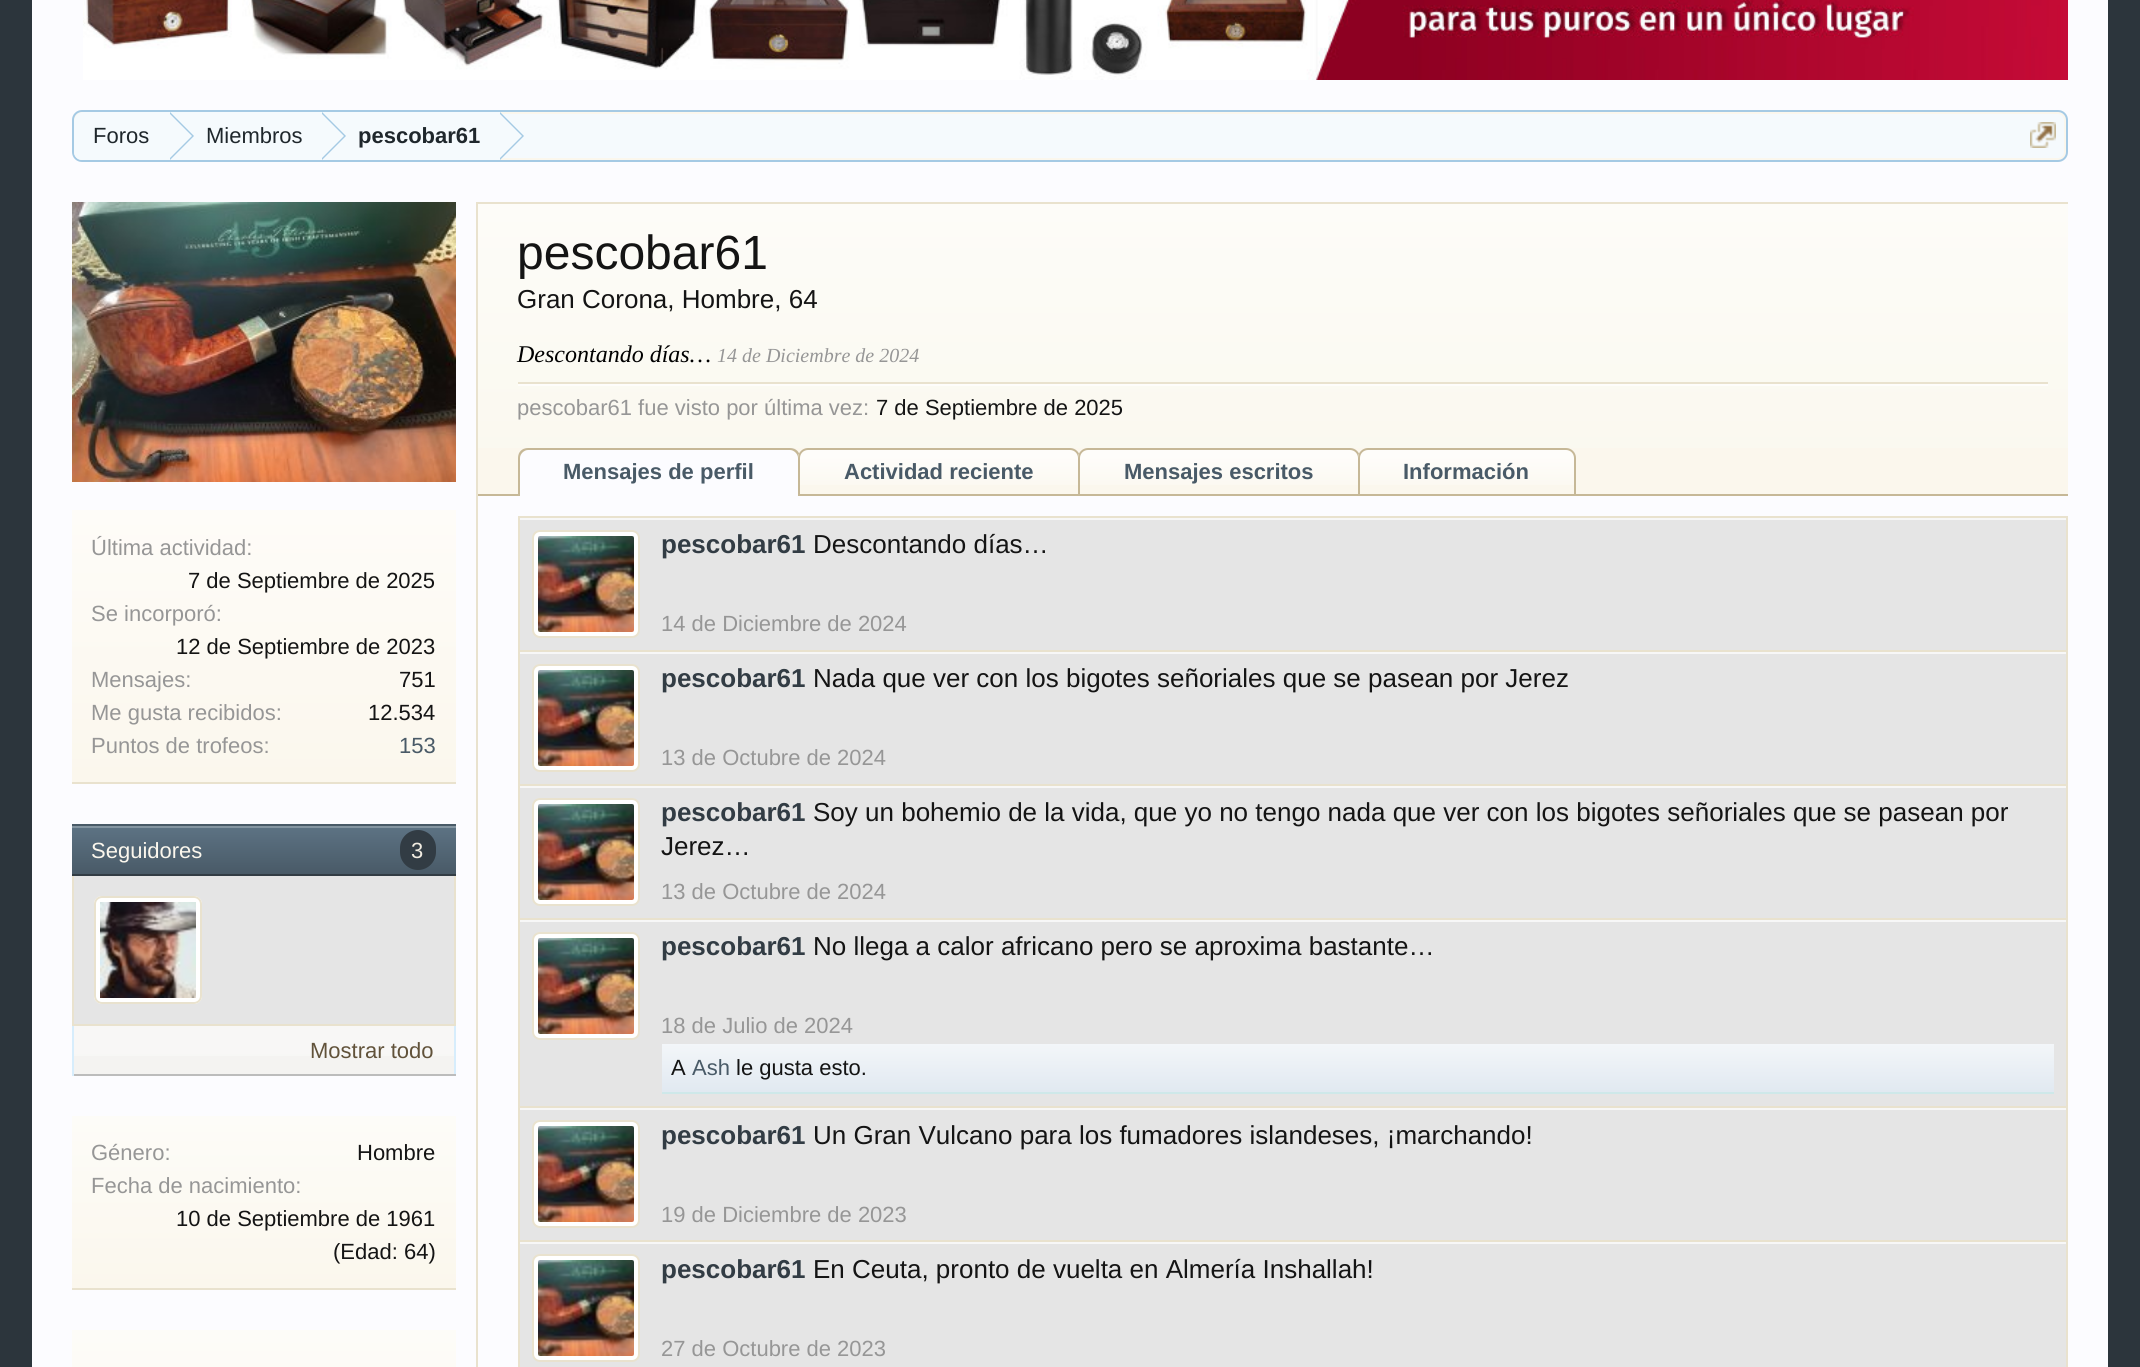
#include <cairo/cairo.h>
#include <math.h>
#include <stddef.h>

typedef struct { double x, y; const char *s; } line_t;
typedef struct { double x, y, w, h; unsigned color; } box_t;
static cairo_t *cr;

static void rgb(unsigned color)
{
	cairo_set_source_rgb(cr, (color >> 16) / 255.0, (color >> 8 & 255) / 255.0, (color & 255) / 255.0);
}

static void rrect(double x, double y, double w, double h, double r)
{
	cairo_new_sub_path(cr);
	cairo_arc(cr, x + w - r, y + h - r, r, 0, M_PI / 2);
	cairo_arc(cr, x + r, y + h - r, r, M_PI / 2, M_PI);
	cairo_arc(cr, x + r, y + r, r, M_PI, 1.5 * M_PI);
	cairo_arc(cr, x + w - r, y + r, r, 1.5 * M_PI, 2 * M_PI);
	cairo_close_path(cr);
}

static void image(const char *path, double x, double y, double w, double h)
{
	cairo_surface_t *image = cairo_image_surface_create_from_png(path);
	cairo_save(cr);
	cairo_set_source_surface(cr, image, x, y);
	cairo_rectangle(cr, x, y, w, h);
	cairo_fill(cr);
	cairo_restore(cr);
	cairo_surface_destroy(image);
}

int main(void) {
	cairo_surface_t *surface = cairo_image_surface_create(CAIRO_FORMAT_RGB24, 2140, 1367);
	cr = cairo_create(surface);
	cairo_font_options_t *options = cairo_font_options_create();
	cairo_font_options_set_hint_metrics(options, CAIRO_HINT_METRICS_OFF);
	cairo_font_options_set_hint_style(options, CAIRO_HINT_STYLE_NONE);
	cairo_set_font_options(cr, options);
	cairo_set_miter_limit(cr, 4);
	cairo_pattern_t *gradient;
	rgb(0x2c353c);
	cairo_paint(cr);
	rgb(0xfcfcff);
	cairo_rectangle(cr, 32, 0, 2076, 1367);
	cairo_fill(cr);
	image("img/1.png", 83, 0, 1985, 80);
	rgb(0xf5fafd);
	rrect(72, 110, 1996, 52, 10);
	cairo_fill(cr);
	rrect(75, 113, 1990, 46, 7);
	rgb(0xfbf7ed);
	cairo_stroke(cr);
	rrect(73, 111, 1994, 50, 9);
	rgb(0xa5cae4);
	cairo_stroke(cr);
	cairo_save(cr);
	rrect(74, 112, 1992, 48, 8);
	cairo_clip(cr);
	rgb(0xf5fafd);
	cairo_new_path(cr);
	cairo_move_to(cr, 84, 112);
	cairo_line_to(cr, 170, 112);
	cairo_line_to(cr, 170, 162);
	cairo_line_to(cr, 84, 162);
	cairo_curve_to(cr, 78.5, 162, 74, 157.5, 74, 152);
	cairo_line_to(cr, 74, 122);
	cairo_curve_to(cr, 74, 116.5, 78.5, 112, 84, 112);
	cairo_close_path(cr);
	cairo_fill(cr);
	cairo_restore(cr);
	rgb(0xf5fafd);
	cairo_rectangle(cr, 170, 112, 330, 48);
	cairo_fill(cr);
	rgb(0xa5cae4);
	cairo_new_path(cr);
	cairo_move_to(cr, 170, 160);
	cairo_line_to(cr, 170, 112);
	cairo_line_to(cr, 194, 136);
	cairo_close_path(cr);
	cairo_fill(cr);
	rgb(0xf5fafd);
	cairo_new_path(cr);
	cairo_move_to(cr, 168, 160);
	cairo_line_to(cr, 168, 112);
	cairo_line_to(cr, 192, 136);
	cairo_close_path(cr);
	cairo_fill(cr);
	rgb(0xa5cae4);
	cairo_new_path(cr);
	cairo_move_to(cr, 322, 160);
	cairo_line_to(cr, 322, 112);
	cairo_line_to(cr, 346, 136);
	cairo_close_path(cr);
	cairo_fill(cr);
	rgb(0xf5fafd);
	cairo_new_path(cr);
	cairo_move_to(cr, 320, 160);
	cairo_line_to(cr, 320, 112);
	cairo_line_to(cr, 344, 136);
	cairo_close_path(cr);
	cairo_fill(cr);
	rgb(0xa5cae4);
	cairo_new_path(cr);
	cairo_move_to(cr, 500, 160);
	cairo_line_to(cr, 500, 112);
	cairo_line_to(cr, 524, 136);
	cairo_close_path(cr);
	cairo_fill(cr);
	rgb(0xf5fafd);
	cairo_new_path(cr);
	cairo_move_to(cr, 498, 160);
	cairo_line_to(cr, 498, 112);
	cairo_line_to(cr, 522, 136);
	cairo_close_path(cr);
	cairo_fill(cr);
	image("img/2.png", 2030, 122, 26, 26);
	rgb(0xe9e2ce);
	cairo_rectangle(cr, 476, 202, 2, 1165);
	cairo_fill(cr);
	image("img/3.png", 72, 202, 384, 280);
	gradient = cairo_pattern_create_linear(264, 510, 264, 782);
	cairo_pattern_add_color_stop_rgba(gradient, 0, 0.996, 0.988, 0.973, 1);
	cairo_pattern_add_color_stop_rgba(gradient, 1, 0.984, 0.969, 0.929, 1);
	cairo_set_source(cr, gradient);
	cairo_pattern_destroy(gradient);
	cairo_rectangle(cr, 72, 510, 384, 272);
	cairo_fill(cr);
	rgb(0xe9e2ce);
	cairo_rectangle(cr, 72, 782, 384, 2);
	cairo_fill(cr);
	rgb(0x495a67);
	cairo_rectangle(cr, 72, 824, 384, 2);
	cairo_fill(cr);
	gradient = cairo_pattern_create_linear(264, 826, 264, 874);
	cairo_pattern_add_color_stop_rgba(gradient, 0, 0.365, 0.451, 0.518, 1);
	cairo_pattern_add_color_stop_rgba(gradient, 1, 0.286, 0.353, 0.404, 1);
	cairo_set_source(cr, gradient);
	cairo_pattern_destroy(gradient);
	cairo_rectangle(cr, 72, 828, 384, 46);
	cairo_fill(cr);
	rgb(0x8596a2);
	cairo_rectangle(cr, 72, 826, 384, 2);
	cairo_fill(cr);
	rgb(0x323c44);
	cairo_rectangle(cr, 72, 874, 384, 2);
	cairo_fill(cr);
	rrect(400, 830, 36, 40, 18);
	cairo_fill(cr);
	{
		static const box_t items[] = {
			{74, 876, 380, 148, 0xe5e5e5},
			{454, 876, 2, 150, 0xe9e2ce},
			{72, 1024, 384, 2, 0xe9e2ce},
			{72, 876, 2, 150, 0xe9e2ce},
		};
		for (size_t i = 0; i < sizeof items / sizeof *items; i++) {
			rgb(items[i].color);
			cairo_rectangle(cr, items[i].x, items[i].y, items[i].w, items[i].h);
			cairo_fill(cr);
		}
	}
	rgb(0xffffff);
	rrect(94, 896, 108, 108, 8);
	cairo_fill(cr);
	image("img/4.png", 100, 902, 96, 96);
	rrect(95, 897, 106, 106, 7);
	rgb(0xe9e2ce);
	cairo_stroke(cr);
	rgb(0xf4f3f1);
	cairo_rectangle(cr, 74, 1026, 380, 48);
	cairo_fill(cr);
	image("img/5.png", 74, 1026, 380, 30);
	{
		static const box_t items[] = {
			{454, 1026, 2, 50, 0xd7edfc},
			{72, 1074, 384, 2, 0xbcbcbc},
			{72, 1026, 2, 50, 0xd7edfc},
		};
		for (size_t i = 0; i < sizeof items / sizeof *items; i++) {
			rgb(items[i].color);
			cairo_rectangle(cr, items[i].x, items[i].y, items[i].w, items[i].h);
			cairo_fill(cr);
		}
	}
	gradient = cairo_pattern_create_linear(264, 1116, 264, 1288);
	cairo_pattern_add_color_stop_rgba(gradient, 0, 0.992, 0.988, 0.973, 1);
	cairo_pattern_add_color_stop_rgba(gradient, 1, 0.984, 0.969, 0.929, 1);
	cairo_set_source(cr, gradient);
	cairo_pattern_destroy(gradient);
	cairo_rectangle(cr, 72, 1116, 384, 172);
	cairo_fill(cr);
	rgb(0xe9e2ce);
	cairo_rectangle(cr, 72, 1288, 384, 2);
	cairo_fill(cr);
	gradient = cairo_pattern_create_linear(264, 1330, 264, 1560);
	cairo_pattern_add_color_stop_rgba(gradient, 0, 0.992, 0.988, 0.973, 1);
	cairo_pattern_add_color_stop_rgba(gradient, 1, 0.984, 0.969, 0.929, 1);
	cairo_set_source(cr, gradient);
	cairo_pattern_destroy(gradient);
	cairo_rectangle(cr, 72, 1330, 384, 37);
	cairo_fill(cr);
	rgb(0xe9e2ce);
	cairo_rectangle(cr, 478, 202, 1590, 2);
	cairo_fill(cr);
	gradient = cairo_pattern_create_linear(1273, 204, 1273, 494);
	cairo_pattern_add_color_stop_rgba(gradient, 0, 0.992, 0.988, 0.973, 1);
	cairo_pattern_add_color_stop_rgba(gradient, 1, 0.98, 0.973, 0.933, 1);
	cairo_set_source(cr, gradient);
	cairo_pattern_destroy(gradient);
	cairo_rectangle(cr, 478, 204, 1590, 244);
	cairo_fill(cr);
	{
		static const box_t items[] = {
			{518, 384, 1530, 2, 0xfefdfb},
			{518, 382, 1530, 2, 0xe9e2ce},
			{478, 448, 1590, 46, 0xfbf7ed},
			{478, 494, 1590, 2, 0xc6b897},
		};
		for (size_t i = 0; i < sizeof items / sizeof *items; i++) {
			rgb(items[i].color);
			cairo_rectangle(cr, items[i].x, items[i].y, items[i].w, items[i].h);
			cairo_fill(cr);
		}
	}
	rgb(0xfcfcff);
	cairo_new_path(cr);
	cairo_move_to(cr, 528, 448);
	cairo_line_to(cr, 790, 448);
	cairo_curve_to(cr, 795.5, 448, 800, 452.5, 800, 458);
	cairo_line_to(cr, 800, 496);
	cairo_line_to(cr, 518, 496);
	cairo_line_to(cr, 518, 458);
	cairo_curve_to(cr, 518, 452.5, 522.5, 448, 528, 448);
	cairo_close_path(cr);
	cairo_fill(cr);
	rgb(0xc6b897);
	cairo_set_fill_rule(cr, CAIRO_FILL_RULE_EVEN_ODD);
	cairo_new_path(cr);
	cairo_move_to(cr, 528, 448);
	cairo_line_to(cr, 790, 448);
	cairo_curve_to(cr, 796, 448, 800, 452, 800, 458);
	cairo_line_to(cr, 800, 496);
	cairo_line_to(cr, 518, 496);
	cairo_line_to(cr, 518, 458);
	cairo_curve_to(cr, 518, 452, 522, 448, 528, 448);
	cairo_close_path(cr);
	cairo_move_to(cr, 528, 450);
	cairo_line_to(cr, 790, 450);
	cairo_curve_to(cr, 794, 450, 798, 454, 798, 458);
	cairo_line_to(cr, 798, 496);
	cairo_line_to(cr, 520, 496);
	cairo_line_to(cr, 520, 458);
	cairo_curve_to(cr, 520, 454, 524, 450, 528, 450);
	cairo_close_path(cr);
	cairo_fill(cr);
	rgb(0xfbf7ed);
	cairo_new_path(cr);
	cairo_move_to(cr, 808, 448);
	cairo_line_to(cr, 1070, 448);
	cairo_curve_to(cr, 1075.5, 448, 1080, 452.5, 1080, 458);
	cairo_line_to(cr, 1080, 496);
	cairo_line_to(cr, 798, 496);
	cairo_line_to(cr, 798, 458);
	cairo_curve_to(cr, 798, 452.5, 802.5, 448, 808, 448);
	cairo_close_path(cr);
	cairo_fill(cr);
	image("img/6.png", 798, 450, 281, 35);
	cairo_new_path(cr);
	cairo_move_to(cr, 808, 449);
	cairo_line_to(cr, 1070, 449);
	cairo_curve_to(cr, 1075, 449, 1079, 453, 1079, 458);
	cairo_line_to(cr, 1079, 495);
	cairo_line_to(cr, 799, 495);
	cairo_line_to(cr, 799, 458);
	cairo_curve_to(cr, 799, 453, 803, 449, 808, 449);
	cairo_close_path(cr);
	rgb(0xc6b897);
	cairo_stroke(cr);
	rgb(0xfbf7ed);
	cairo_new_path(cr);
	cairo_move_to(cr, 1088, 448);
	cairo_line_to(cr, 1350, 448);
	cairo_curve_to(cr, 1355.5, 448, 1360, 452.5, 1360, 458);
	cairo_line_to(cr, 1360, 496);
	cairo_line_to(cr, 1078, 496);
	cairo_line_to(cr, 1078, 458);
	cairo_curve_to(cr, 1078, 452.5, 1082.5, 448, 1088, 448);
	cairo_close_path(cr);
	cairo_fill(cr);
	image("img/7.png", 1078, 450, 281, 35);
	cairo_new_path(cr);
	cairo_move_to(cr, 1088, 449);
	cairo_line_to(cr, 1350, 449);
	cairo_curve_to(cr, 1355, 449, 1359, 453, 1359, 458);
	cairo_line_to(cr, 1359, 495);
	cairo_line_to(cr, 1079, 495);
	cairo_line_to(cr, 1079, 458);
	cairo_curve_to(cr, 1079, 453, 1083, 449, 1088, 449);
	cairo_close_path(cr);
	rgb(0xc6b897);
	cairo_stroke(cr);
	rgb(0xfbf7ed);
	cairo_new_path(cr);
	cairo_move_to(cr, 1368, 448);
	cairo_line_to(cr, 1566, 448);
	cairo_curve_to(cr, 1571.5, 448, 1576, 452.5, 1576, 458);
	cairo_line_to(cr, 1576, 496);
	cairo_line_to(cr, 1358, 496);
	cairo_line_to(cr, 1358, 458);
	cairo_curve_to(cr, 1358, 452.5, 1362.5, 448, 1368, 448);
	cairo_close_path(cr);
	cairo_fill(cr);
	image("img/8.png", 1358, 450, 218, 35);
	cairo_new_path(cr);
	cairo_move_to(cr, 1368, 449);
	cairo_line_to(cr, 1566, 449);
	cairo_curve_to(cr, 1571, 449, 1575, 453, 1575, 458);
	cairo_line_to(cr, 1575, 495);
	cairo_line_to(cr, 1359, 495);
	cairo_line_to(cr, 1359, 458);
	cairo_curve_to(cr, 1359, 453, 1363, 449, 1368, 449);
	cairo_close_path(cr);
	rgb(0xc6b897);
	cairo_stroke(cr);
	rgb(0xe5e5e5);
	cairo_rectangle(cr, 520, 520, 1546, 130);
	cairo_fill(cr);
	rgb(0xf7f7f7);
	cairo_rectangle(cr, 520, 518, 1546, 2);
	cairo_fill(cr);
	cairo_rectangle(cr, 519, 517, 1548, 134);
	rgb(0xe9e2ce);
	cairo_stroke(cr);
	rgb(0xffffff);
	rrect(533, 531, 106, 106, 7);
	cairo_fill_preserve(cr);
	rgb(0xe9e2ce);
	cairo_stroke(cr);
	image("img/9.png", 538, 536, 96, 96);
	{
		static const box_t items[] = {
			{520, 654, 1546, 130, 0xe5e5e5},
			{520, 652, 1546, 2, 0xf7f7f7},
			{2066, 652, 2, 715, 0xe9e2ce},
			{518, 784, 1550, 2, 0xe9e2ce},
			{518, 652, 2, 134, 0xe9e2ce},
		};
		for (size_t i = 0; i < sizeof items / sizeof *items; i++) {
			rgb(items[i].color);
			cairo_rectangle(cr, items[i].x, items[i].y, items[i].w, items[i].h);
			cairo_fill(cr);
		}
	}
	rgb(0xffffff);
	rrect(533, 665, 106, 106, 7);
	cairo_fill_preserve(cr);
	rgb(0xe9e2ce);
	cairo_stroke(cr);
	image("img/9.png", 538, 670, 96, 96);
	{
		static const box_t items[] = {
			{520, 788, 1546, 130, 0xe5e5e5},
			{520, 786, 1546, 2, 0xf7f7f7},
			{518, 918, 1550, 2, 0xe9e2ce},
			{518, 786, 2, 134, 0xe9e2ce},
		};
		for (size_t i = 0; i < sizeof items / sizeof *items; i++) {
			rgb(items[i].color);
			cairo_rectangle(cr, items[i].x, items[i].y, items[i].w, items[i].h);
			cairo_fill(cr);
		}
	}
	rgb(0xffffff);
	rrect(533, 799, 106, 106, 7);
	cairo_fill_preserve(cr);
	rgb(0xe9e2ce);
	cairo_stroke(cr);
	image("img/9.png", 538, 804, 96, 96);
	{
		static const box_t items[] = {
			{520, 922, 1546, 184, 0xe5e5e5},
			{520, 920, 1546, 2, 0xf7f7f7},
			{518, 1106, 1550, 2, 0xe9e2ce},
			{518, 920, 2, 188, 0xe9e2ce},
		};
		for (size_t i = 0; i < sizeof items / sizeof *items; i++) {
			rgb(items[i].color);
			cairo_rectangle(cr, items[i].x, items[i].y, items[i].w, items[i].h);
			cairo_fill(cr);
		}
	}
	rgb(0xffffff);
	rrect(533, 933, 106, 106, 7);
	cairo_fill_preserve(cr);
	rgb(0xe9e2ce);
	cairo_stroke(cr);
	image("img/9.png", 538, 938, 96, 96);
	gradient = cairo_pattern_create_linear(1358, 1044, 1358, 1092);
	cairo_pattern_add_color_stop_rgba(gradient, 0, 0.953, 0.965, 0.976, 1);
	cairo_pattern_add_color_stop_rgba(gradient, 1, 0.882, 0.914, 0.945, 1);
	cairo_set_source(cr, gradient);
	cairo_pattern_destroy(gradient);
	cairo_rectangle(cr, 662, 1044, 1392, 48);
	cairo_fill(cr);
	{
		static const box_t items[] = {
			{662, 1092, 1392, 2, 0xcee8e9},
			{520, 1110, 1546, 130, 0xe5e5e5},
			{520, 1108, 1546, 2, 0xf7f7f7},
			{518, 1240, 1550, 2, 0xe9e2ce},
			{518, 1108, 2, 259, 0xe9e2ce},
		};
		for (size_t i = 0; i < sizeof items / sizeof *items; i++) {
			rgb(items[i].color);
			cairo_rectangle(cr, items[i].x, items[i].y, items[i].w, items[i].h);
			cairo_fill(cr);
		}
	}
	rgb(0xffffff);
	rrect(533, 1121, 106, 106, 7);
	cairo_fill_preserve(cr);
	rgb(0xe9e2ce);
	cairo_stroke(cr);
	image("img/9.png", 538, 1126, 96, 96);
	rgb(0xe5e5e5);
	cairo_rectangle(cr, 520, 1244, 1546, 123);
	cairo_fill(cr);
	rgb(0xf7f7f7);
	cairo_rectangle(cr, 520, 1242, 1546, 2);
	cairo_fill(cr);
	rgb(0xffffff);
	rrect(533, 1255, 106, 106, 7);
	cairo_fill_preserve(cr);
	rgb(0xe9e2ce);
	cairo_stroke(cr);
	image("img/9.png", 538, 1260, 96, 96);
	cairo_select_font_face(cr, "Liberation Sans", CAIRO_FONT_SLANT_NORMAL, CAIRO_FONT_WEIGHT_NORMAL);
	cairo_set_font_size(cr, 22);
	rgb(0x1f272c);
	cairo_move_to(cr, 93, 143);
	cairo_show_text(cr, "Foros");
	cairo_move_to(cr, 206, 143);
	cairo_show_text(cr, "Miembros");
	cairo_select_font_face(cr, "Liberation Sans", CAIRO_FONT_SLANT_NORMAL, CAIRO_FONT_WEIGHT_BOLD);
	cairo_move_to(cr, 358, 143);
	cairo_show_text(cr, "pescobar61");
	cairo_select_font_face(cr, "Liberation Sans", CAIRO_FONT_SLANT_NORMAL, CAIRO_FONT_WEIGHT_NORMAL);
	rgb(0x969696);
	cairo_move_to(cr, 91, 555);
	cairo_show_text(cr, "Última actividad:");
	rgb(0x141414);
	cairo_move_to(cr, 188, 588);
	cairo_show_text(cr, "7 de Septiembre de 2025");
	rgb(0x969696);
	cairo_move_to(cr, 91, 621);
	cairo_show_text(cr, "Se incorporó:");
	rgb(0x141414);
	cairo_move_to(cr, 176, 654);
	cairo_show_text(cr, "12 de Septiembre de 2023");
	rgb(0x969696);
	cairo_move_to(cr, 91, 687);
	cairo_show_text(cr, "Mensajes:");
	rgb(0x141414);
	cairo_move_to(cr, 399, 687);
	cairo_show_text(cr, "751");
	rgb(0x969696);
	cairo_move_to(cr, 91, 720);
	cairo_show_text(cr, "Me gusta recibidos:");
	rgb(0x141414);
	cairo_move_to(cr, 368, 720);
	cairo_show_text(cr, "12.534");
	rgb(0x969696);
	cairo_move_to(cr, 91, 753);
	cairo_show_text(cr, "Puntos de trofeos:");
	rgb(0x495a67);
	cairo_move_to(cr, 399, 753);
	cairo_show_text(cr, "153");
	rgb(0xfbf7ed);
	cairo_move_to(cr, 91, 858);
	cairo_show_text(cr, "Seguidores");
	rgb(0xf1ece1);
	cairo_move_to(cr, 411, 858);
	cairo_show_text(cr, "3");
	rgb(0x61523a);
	cairo_move_to(cr, 310, 1058);
	cairo_show_text(cr, "Mostrar todo");
	rgb(0x969696);
	cairo_move_to(cr, 91, 1160);
	cairo_show_text(cr, "Género:");
	rgb(0x141414);
	cairo_move_to(cr, 357, 1160);
	cairo_show_text(cr, "Hombre");
	rgb(0x969696);
	cairo_move_to(cr, 91, 1193);
	cairo_show_text(cr, "Fecha de nacimiento:");
	rgb(0x141414);
	cairo_move_to(cr, 176, 1226);
	cairo_show_text(cr, "10 de Septiembre de 1961");
	cairo_move_to(cr, 333, 1259);
	cairo_show_text(cr, "(Edad: 64)");
	cairo_set_font_size(cr, 48);
	cairo_move_to(cr, 517, 269);
	cairo_show_text(cr, "pescobar61");
	cairo_set_font_size(cr, 26);
	cairo_move_to(cr, 517, 308);
	cairo_show_text(cr, "Gran Corona, Hombre, 64");
	cairo_select_font_face(cr, "Liberation Serif", CAIRO_FONT_SLANT_ITALIC, CAIRO_FONT_WEIGHT_NORMAL);
	cairo_set_font_size(cr, 24);
	rgb(0x000000);
	cairo_move_to(cr, 517, 362);
	cairo_show_text(cr, "Descontando días…");
	cairo_set_font_size(cr, 20);
	rgb(0x969696);
	cairo_move_to(cr, 717, 362);
	cairo_show_text(cr, "14 de Diciembre de 2024");
	cairo_select_font_face(cr, "Liberation Sans", CAIRO_FONT_SLANT_NORMAL, CAIRO_FONT_WEIGHT_NORMAL);
	cairo_set_font_size(cr, 22);
	cairo_move_to(cr, 517, 415);
	cairo_show_text(cr, "pescobar61 fue visto por última vez:");
	rgb(0x141414);
	cairo_move_to(cr, 876, 415);
	cairo_show_text(cr, "7 de Septiembre de 2025");
	cairo_select_font_face(cr, "Liberation Sans", CAIRO_FONT_SLANT_NORMAL, CAIRO_FONT_WEIGHT_BOLD);
	rgb(0x495a67);
	{
		static const line_t items[] = {
			{563, 479, "Mensajes de perfil"},
			{844, 479, "Actividad reciente"},
			{1124, 479, "Mensajes escritos"},
			{1403, 479, "Información"},
		};
		for (size_t i = 0; i < sizeof items / sizeof *items; i++) {
			cairo_move_to(cr, items[i].x, items[i].y);
			cairo_show_text(cr, items[i].s);
		}
	}
	cairo_set_font_size(cr, 26);
	rgb(0x323c44);
	cairo_move_to(cr, 661, 553);
	cairo_show_text(cr, "pescobar61");
	cairo_select_font_face(cr, "Liberation Sans", CAIRO_FONT_SLANT_NORMAL, CAIRO_FONT_WEIGHT_NORMAL);
	rgb(0x141414);
	cairo_move_to(cr, 813, 553);
	cairo_show_text(cr, "Descontando días…");
	cairo_set_font_size(cr, 22);
	rgb(0x969696);
	cairo_move_to(cr, 661, 631);
	cairo_show_text(cr, "14 de Diciembre de 2024");
	cairo_select_font_face(cr, "Liberation Sans", CAIRO_FONT_SLANT_NORMAL, CAIRO_FONT_WEIGHT_BOLD);
	cairo_set_font_size(cr, 26);
	rgb(0x323c44);
	cairo_move_to(cr, 661, 687);
	cairo_show_text(cr, "pescobar61");
	cairo_select_font_face(cr, "Liberation Sans", CAIRO_FONT_SLANT_NORMAL, CAIRO_FONT_WEIGHT_NORMAL);
	rgb(0x141414);
	cairo_move_to(cr, 813, 687);
	cairo_show_text(cr, "Nada que ver con los bigotes señoriales que se pasean por Jerez");
	cairo_set_font_size(cr, 22);
	rgb(0x969696);
	cairo_move_to(cr, 661, 765);
	cairo_show_text(cr, "13 de Octubre de 2024");
	cairo_select_font_face(cr, "Liberation Sans", CAIRO_FONT_SLANT_NORMAL, CAIRO_FONT_WEIGHT_BOLD);
	cairo_set_font_size(cr, 26);
	rgb(0x323c44);
	cairo_move_to(cr, 661, 821);
	cairo_show_text(cr, "pescobar61");
	cairo_select_font_face(cr, "Liberation Sans", CAIRO_FONT_SLANT_NORMAL, CAIRO_FONT_WEIGHT_NORMAL);
	rgb(0x141414);
	cairo_move_to(cr, 813, 821);
	cairo_show_text(cr, "Soy un bohemio de la vida, que yo no tengo nada que ver con los bigotes señoriales que se pasean por");
	cairo_move_to(cr, 661, 855);
	cairo_show_text(cr, "Jerez…");
	cairo_set_font_size(cr, 22);
	rgb(0x969696);
	cairo_move_to(cr, 661, 899);
	cairo_show_text(cr, "13 de Octubre de 2024");
	cairo_select_font_face(cr, "Liberation Sans", CAIRO_FONT_SLANT_NORMAL, CAIRO_FONT_WEIGHT_BOLD);
	cairo_set_font_size(cr, 26);
	rgb(0x323c44);
	cairo_move_to(cr, 661, 955);
	cairo_show_text(cr, "pescobar61");
	cairo_select_font_face(cr, "Liberation Sans", CAIRO_FONT_SLANT_NORMAL, CAIRO_FONT_WEIGHT_NORMAL);
	rgb(0x141414);
	cairo_move_to(cr, 813, 955);
	cairo_show_text(cr, "No llega a calor africano pero se aproxima bastante…");
	cairo_set_font_size(cr, 22);
	rgb(0x969696);
	cairo_move_to(cr, 661, 1033);
	cairo_show_text(cr, "18 de Julio de 2024");
	rgb(0x141414);
	cairo_move_to(cr, 671, 1075);
	cairo_show_text(cr, "A");
	rgb(0x495a67);
	cairo_move_to(cr, 692, 1075);
	cairo_show_text(cr, "Ash");
	rgb(0x141414);
	cairo_move_to(cr, 736, 1075);
	cairo_show_text(cr, "le gusta esto.");
	cairo_select_font_face(cr, "Liberation Sans", CAIRO_FONT_SLANT_NORMAL, CAIRO_FONT_WEIGHT_BOLD);
	cairo_set_font_size(cr, 26);
	rgb(0x323c44);
	cairo_move_to(cr, 661, 1144);
	cairo_show_text(cr, "pescobar61");
	cairo_select_font_face(cr, "Liberation Sans", CAIRO_FONT_SLANT_NORMAL, CAIRO_FONT_WEIGHT_NORMAL);
	rgb(0x141414);
	cairo_move_to(cr, 813, 1144);
	cairo_show_text(cr, "Un Gran Vulcano para los fumadores islandeses, ¡marchando!");
	cairo_set_font_size(cr, 22);
	rgb(0x969696);
	cairo_move_to(cr, 661, 1222);
	cairo_show_text(cr, "19 de Diciembre de 2023");
	cairo_select_font_face(cr, "Liberation Sans", CAIRO_FONT_SLANT_NORMAL, CAIRO_FONT_WEIGHT_BOLD);
	cairo_set_font_size(cr, 26);
	rgb(0x323c44);
	cairo_move_to(cr, 661, 1278);
	cairo_show_text(cr, "pescobar61");
	cairo_select_font_face(cr, "Liberation Sans", CAIRO_FONT_SLANT_NORMAL, CAIRO_FONT_WEIGHT_NORMAL);
	rgb(0x141414);
	cairo_move_to(cr, 813, 1278);
	cairo_show_text(cr, "En Ceuta, pronto de vuelta en Almería Inshallah!");
	cairo_set_font_size(cr, 22);
	rgb(0x969696);
	cairo_move_to(cr, 661, 1356);
	cairo_show_text(cr, "27 de Octubre de 2023");
	cairo_surface_write_to_png(surface, "page.png");
	cairo_font_options_destroy(options);
	cairo_destroy(cr);
	cairo_surface_destroy(surface);
	return 0;
}
